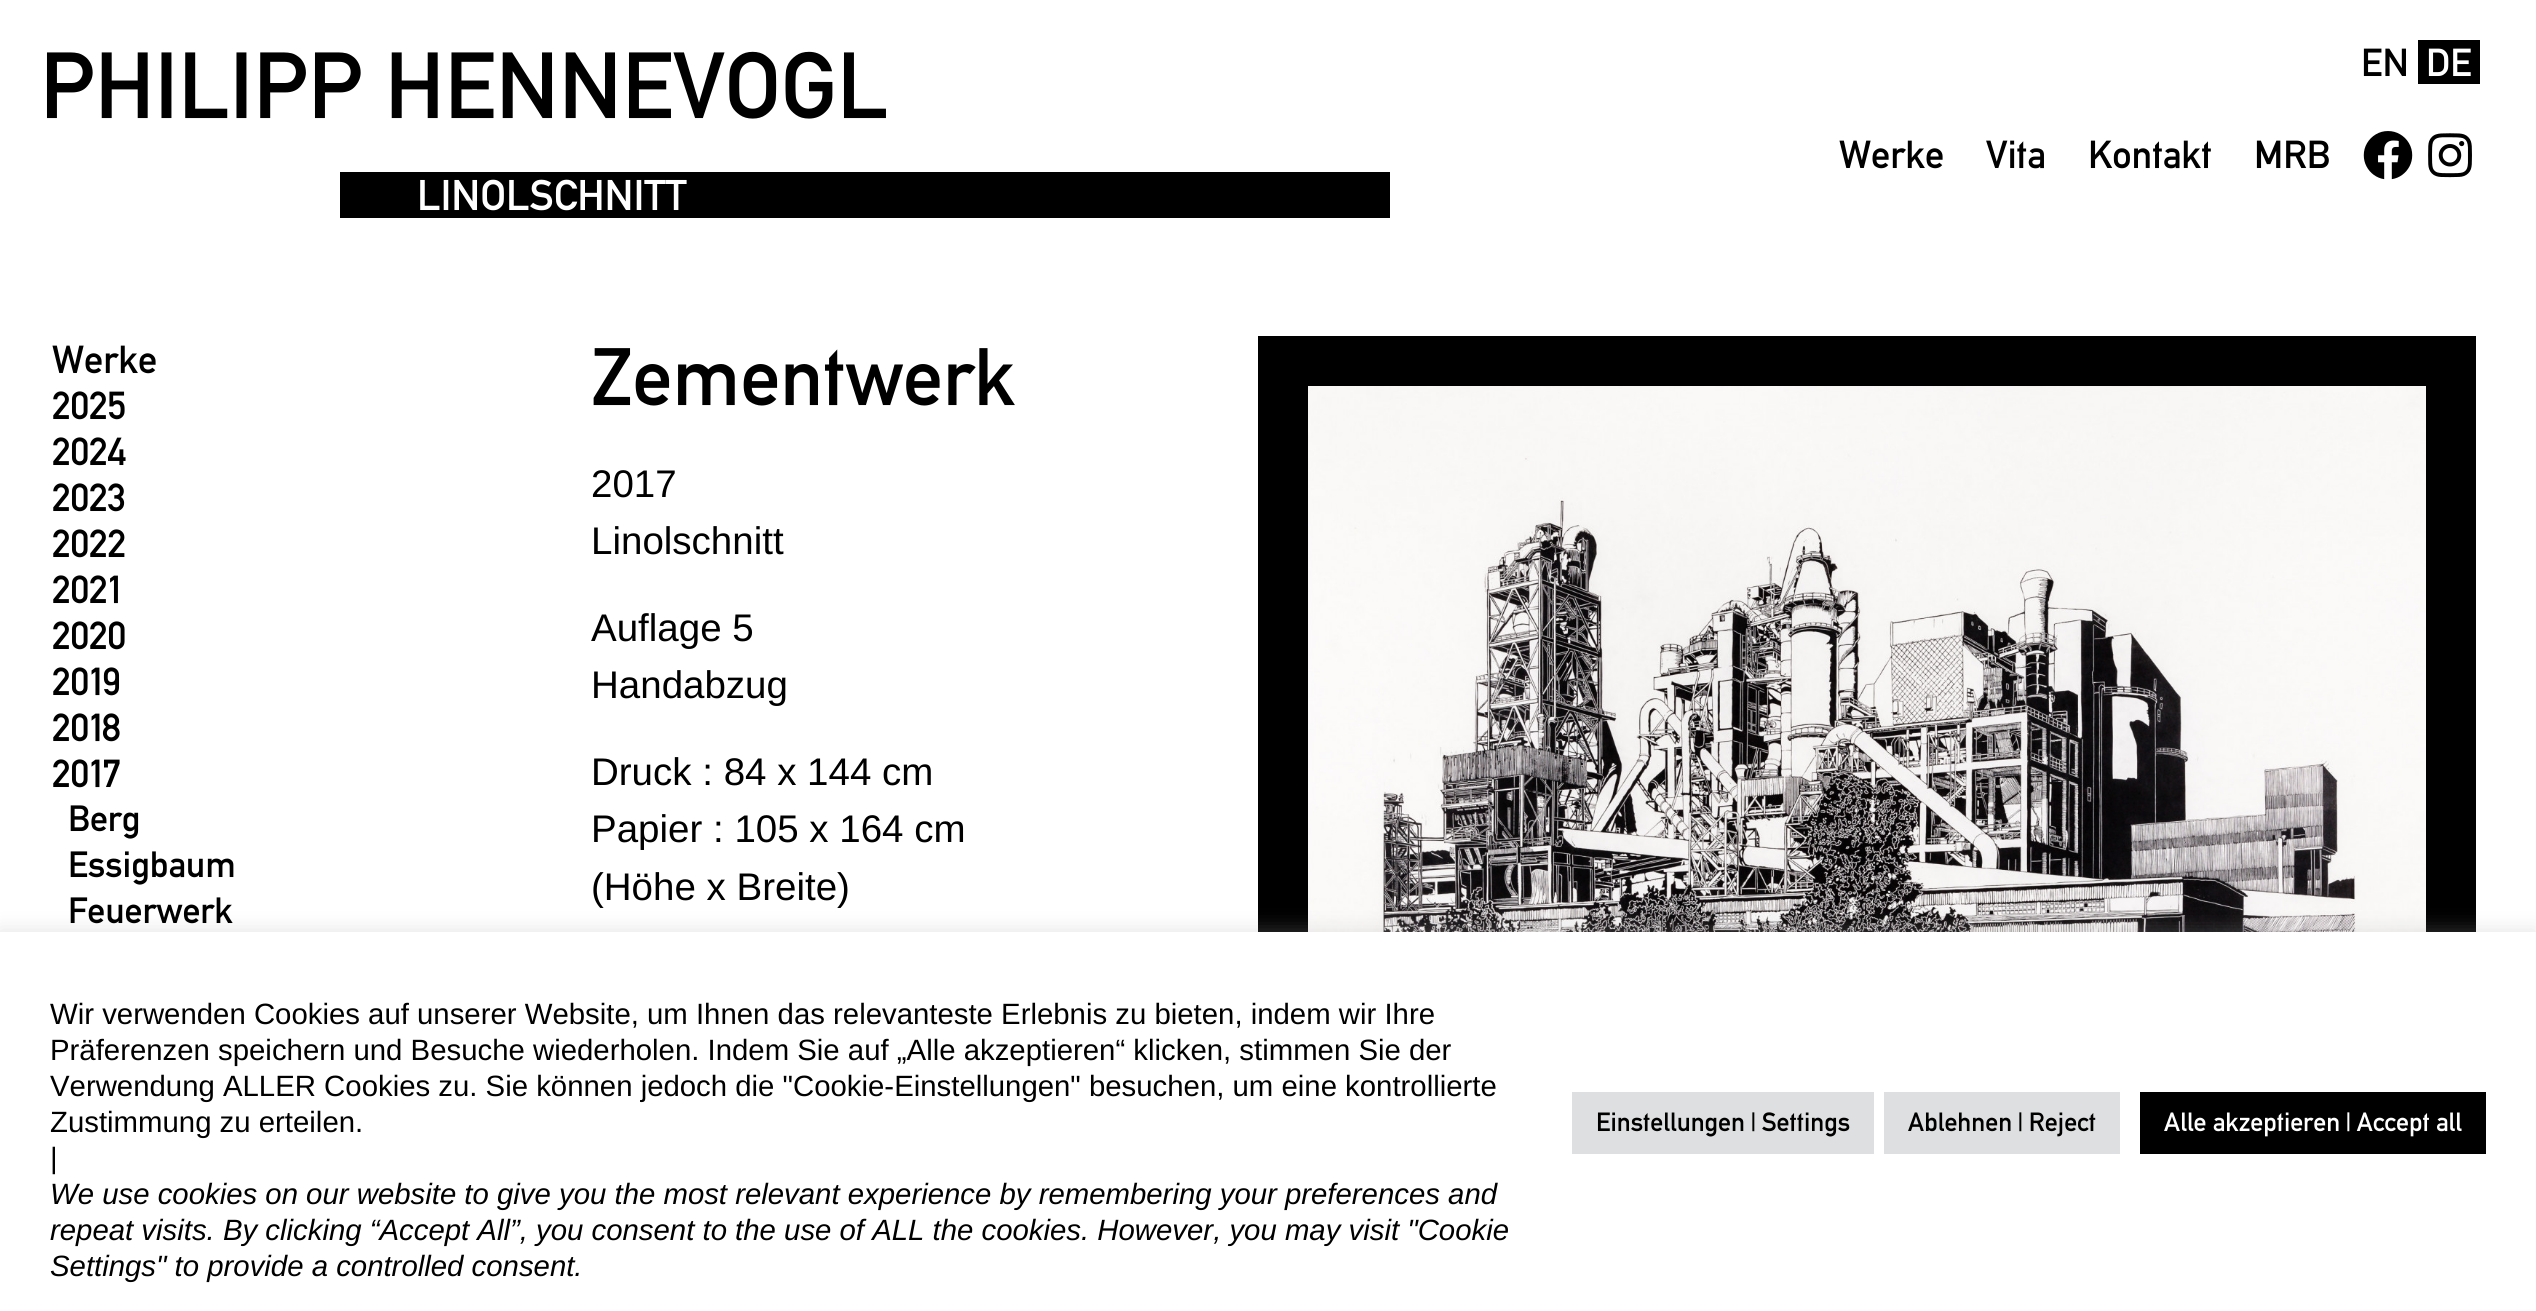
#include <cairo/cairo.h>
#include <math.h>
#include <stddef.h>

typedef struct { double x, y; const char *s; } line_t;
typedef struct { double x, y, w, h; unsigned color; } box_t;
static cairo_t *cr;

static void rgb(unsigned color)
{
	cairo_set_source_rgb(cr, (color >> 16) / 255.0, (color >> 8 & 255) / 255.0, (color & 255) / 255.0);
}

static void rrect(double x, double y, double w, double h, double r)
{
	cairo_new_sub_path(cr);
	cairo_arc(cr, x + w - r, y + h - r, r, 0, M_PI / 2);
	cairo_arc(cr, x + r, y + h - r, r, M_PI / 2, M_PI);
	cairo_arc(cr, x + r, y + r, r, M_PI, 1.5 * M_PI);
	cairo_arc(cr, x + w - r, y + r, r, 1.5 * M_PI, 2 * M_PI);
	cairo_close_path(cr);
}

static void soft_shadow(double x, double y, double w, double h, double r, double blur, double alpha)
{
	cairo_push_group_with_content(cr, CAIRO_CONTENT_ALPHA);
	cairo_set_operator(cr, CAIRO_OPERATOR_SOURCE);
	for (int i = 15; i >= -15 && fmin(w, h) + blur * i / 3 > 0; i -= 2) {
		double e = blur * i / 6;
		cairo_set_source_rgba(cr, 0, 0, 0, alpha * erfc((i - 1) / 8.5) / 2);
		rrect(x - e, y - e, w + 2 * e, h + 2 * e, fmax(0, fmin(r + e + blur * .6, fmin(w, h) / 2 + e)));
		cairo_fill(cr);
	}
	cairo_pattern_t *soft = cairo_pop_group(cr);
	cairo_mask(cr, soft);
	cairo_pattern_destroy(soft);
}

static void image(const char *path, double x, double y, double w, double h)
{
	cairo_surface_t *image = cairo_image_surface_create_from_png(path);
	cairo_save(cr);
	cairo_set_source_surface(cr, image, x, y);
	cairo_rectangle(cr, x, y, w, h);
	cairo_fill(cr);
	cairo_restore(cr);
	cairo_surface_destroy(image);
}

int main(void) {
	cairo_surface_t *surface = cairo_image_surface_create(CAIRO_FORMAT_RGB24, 2536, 1311);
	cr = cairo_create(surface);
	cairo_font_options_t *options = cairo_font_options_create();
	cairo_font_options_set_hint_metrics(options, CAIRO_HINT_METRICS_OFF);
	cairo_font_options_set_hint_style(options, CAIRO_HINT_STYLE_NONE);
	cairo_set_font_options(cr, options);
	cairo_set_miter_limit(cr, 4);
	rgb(0xffffff);
	cairo_paint(cr);
	rgb(0x000000);
	cairo_rectangle(cr, 340, 172, 1050, 46);
	cairo_fill(cr);
	cairo_rectangle(cr, 2418, 40, 62, 44);
	cairo_fill(cr);
	image("img/1.png", 2363, 131, 50, 49);
	image("img/2.png", 2428, 133, 44, 45);
	cairo_rectangle(cr, 1283, 361, 1168, 766);
	cairo_set_line_width(cr, 50);
	cairo_stroke(cr);
	image("img/3.png", 1308, 386, 1118, 546);
	rgb(0xacabab);
	soft_shadow(0, 930, 2536, 380, 0, 10, 0.3);
	{
		static const box_t items[] = {
			{0, 932, 2536, 379, 0xffffff},
			{1572, 1092, 302, 62, 0xdedfe0},
			{1884, 1092, 236, 62, 0xdedfe0},
			{2140, 1092, 346, 62, 0x000000},
		};
		for (size_t i = 0; i < sizeof items / sizeof *items; i++) {
			rgb(items[i].color);
			cairo_rectangle(cr, items[i].x, items[i].y, items[i].w, items[i].h);
			cairo_fill(cr);
		}
	}
	cairo_select_font_face(cr, "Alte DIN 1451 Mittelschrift", CAIRO_FONT_SLANT_NORMAL, CAIRO_FONT_WEIGHT_NORMAL);
	cairo_set_font_size(cr, 92.25);
	cairo_move_to(cr, 40, 118);
	cairo_show_text(cr, "PHILIPP HENNEVOGL");
	cairo_set_font_size(cr, 42.25);
	rgb(0xffffff);
	cairo_move_to(cr, 417, 210);
	cairo_show_text(cr, "LINOLSCHNITT");
	cairo_set_font_size(cr, 38.5);
	rgb(0x000000);
	cairo_move_to(cr, 2361, 76);
	cairo_show_text(cr, "EN");
	rgb(0xffffff);
	cairo_move_to(cr, 2426, 76);
	cairo_show_text(cr, "DE");
	rgb(0x000000);
	{
		static const line_t items[] = {
			{1839, 168, "Werke"},
			{1986, 168, "Vita"},
			{2088, 168, "Kontakt"},
			{2254, 168, "MRB"},
			{52, 373, "Werke"},
			{52, 419, "2025"},
			{52, 465, "2024"},
			{52, 511, "2023"},
			{52, 557, "2022"},
			{52, 603, "2021"},
			{52, 649, "2020"},
			{52, 695, "2019"},
			{52, 741, "2018"},
			{52, 787, "2017"},
		};
		for (size_t i = 0; i < sizeof items / sizeof *items; i++) {
			cairo_move_to(cr, items[i].x, items[i].y);
			cairo_show_text(cr, items[i].s);
		}
	}
	cairo_set_font_size(cr, 36);
	{
		static const line_t items[] = {
			{68, 831, "Berg"},
			{68, 877, "Essigbaum"},
			{68, 923, "Feuerwerk"},
		};
		for (size_t i = 0; i < sizeof items / sizeof *items; i++) {
			cairo_move_to(cr, items[i].x, items[i].y);
			cairo_show_text(cr, items[i].s);
		}
	}
	cairo_set_font_size(cr, 80);
	cairo_move_to(cr, 591, 405);
	cairo_show_text(cr, "Zementwerk");
	cairo_select_font_face(cr, "Liberation Sans", CAIRO_FONT_SLANT_NORMAL, CAIRO_FONT_WEIGHT_NORMAL);
	cairo_set_font_size(cr, 38.5);
	{
		static const line_t items[] = {
			{591, 497, "2017"},
			{591, 554, "Linolschnitt"},
			{591, 641, "Auflage 5"},
			{591, 698, "Handabzug"},
			{591, 785, "Druck : 84 x 144 cm"},
			{591, 842, "Papier : 105 x 164 cm"},
			{591, 900, "(Höhe x Breite)"},
		};
		for (size_t i = 0; i < sizeof items / sizeof *items; i++) {
			cairo_move_to(cr, items[i].x, items[i].y);
			cairo_show_text(cr, items[i].s);
		}
	}
	cairo_set_font_size(cr, 29.35);
	{
		static const line_t items[] = {
			{50, 1024, "Wir verwenden Cookies auf unserer Website, um Ihnen das relevanteste Erlebnis zu bieten, indem wir Ihre"},
			{50, 1060, "Präferenzen speichern und Besuche wiederholen. Indem Sie auf „Alle akzeptieren“ klicken, stimmen Sie der"},
			{50, 1096, "Verwendung ALLER Cookies zu. Sie können jedoch die \"Cookie-Einstellungen\" besuchen, um eine kontrollierte"},
			{50, 1132, "Zustimmung zu erteilen."},
			{50, 1168, "|"},
		};
		for (size_t i = 0; i < sizeof items / sizeof *items; i++) {
			cairo_move_to(cr, items[i].x, items[i].y);
			cairo_show_text(cr, items[i].s);
		}
	}
	cairo_select_font_face(cr, "Liberation Sans", CAIRO_FONT_SLANT_ITALIC, CAIRO_FONT_WEIGHT_NORMAL);
	{
		static const line_t items[] = {
			{50, 1204, "We use cookies on our website to give you the most relevant experience by remembering your preferences and"},
			{50, 1240, "repeat visits. By clicking “Accept All”, you consent to the use of ALL the cookies. However, you may visit \"Cookie"},
			{50, 1276, "Settings\" to provide a controlled consent."},
		};
		for (size_t i = 0; i < sizeof items / sizeof *items; i++) {
			cairo_move_to(cr, items[i].x, items[i].y);
			cairo_show_text(cr, items[i].s);
		}
	}
	cairo_select_font_face(cr, "Alte DIN 1451 Mittelschrift", CAIRO_FONT_SLANT_NORMAL, CAIRO_FONT_WEIGHT_NORMAL);
	cairo_set_font_size(cr, 26);
	cairo_move_to(cr, 1596, 1131);
	cairo_show_text(cr, "Einstellungen | Settings");
	cairo_move_to(cr, 1908, 1131);
	cairo_show_text(cr, "Ablehnen | Reject");
	rgb(0xffffff);
	cairo_move_to(cr, 2164, 1131);
	cairo_show_text(cr, "Alle akzeptieren | Accept all");
	cairo_surface_write_to_png(surface, "page.png");
	cairo_font_options_destroy(options);
	cairo_destroy(cr);
	cairo_surface_destroy(surface);
	return 0;
}
